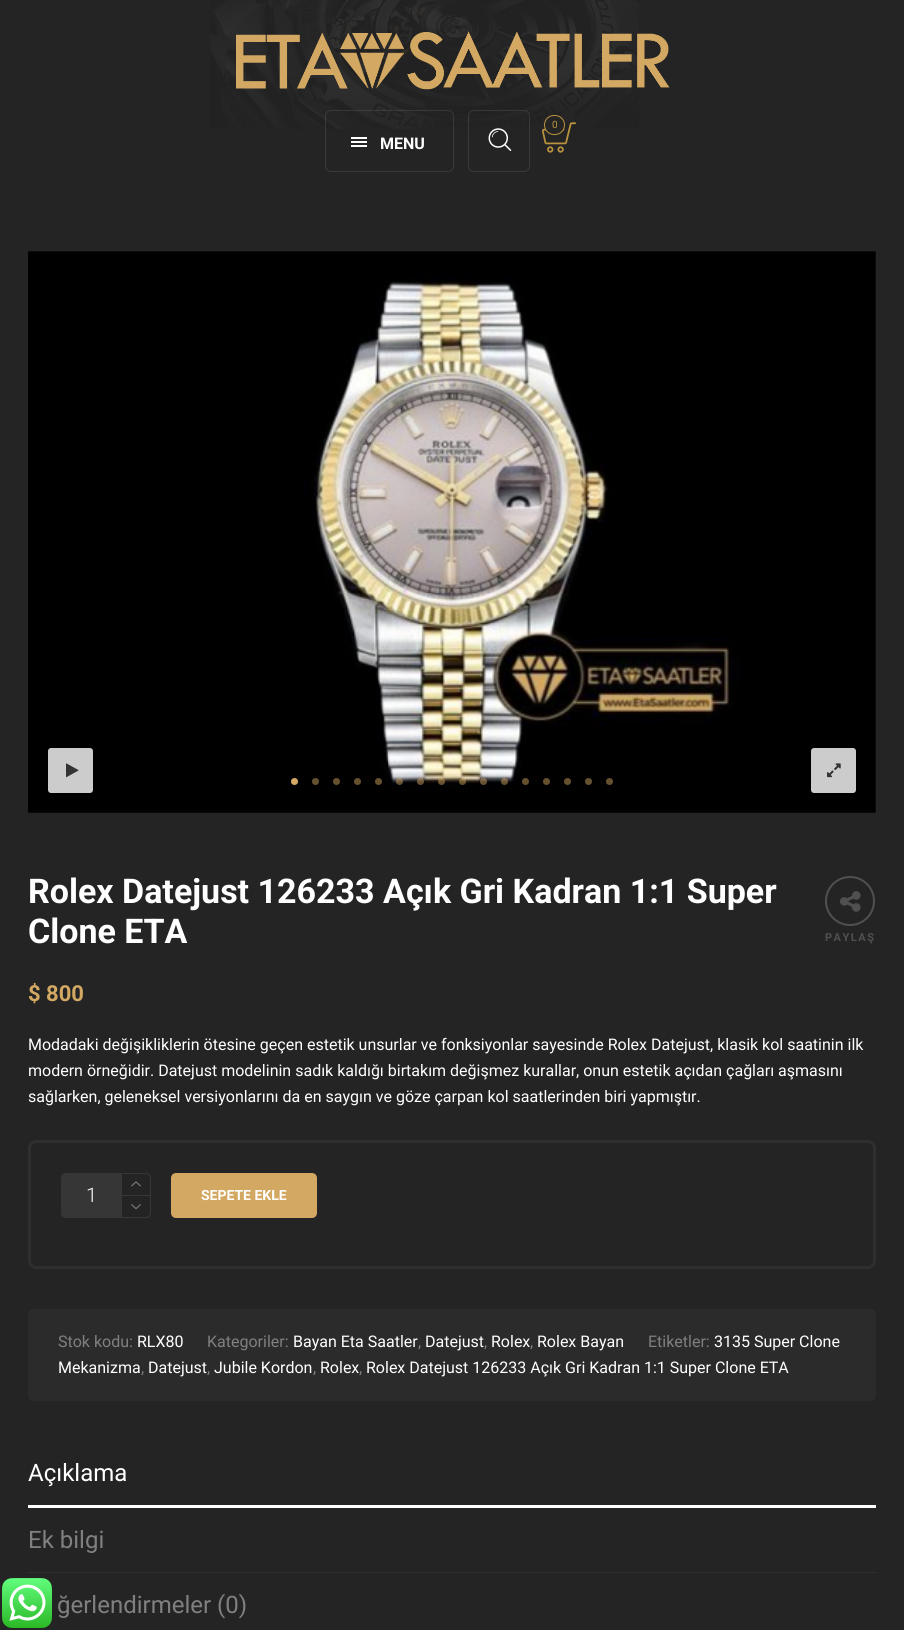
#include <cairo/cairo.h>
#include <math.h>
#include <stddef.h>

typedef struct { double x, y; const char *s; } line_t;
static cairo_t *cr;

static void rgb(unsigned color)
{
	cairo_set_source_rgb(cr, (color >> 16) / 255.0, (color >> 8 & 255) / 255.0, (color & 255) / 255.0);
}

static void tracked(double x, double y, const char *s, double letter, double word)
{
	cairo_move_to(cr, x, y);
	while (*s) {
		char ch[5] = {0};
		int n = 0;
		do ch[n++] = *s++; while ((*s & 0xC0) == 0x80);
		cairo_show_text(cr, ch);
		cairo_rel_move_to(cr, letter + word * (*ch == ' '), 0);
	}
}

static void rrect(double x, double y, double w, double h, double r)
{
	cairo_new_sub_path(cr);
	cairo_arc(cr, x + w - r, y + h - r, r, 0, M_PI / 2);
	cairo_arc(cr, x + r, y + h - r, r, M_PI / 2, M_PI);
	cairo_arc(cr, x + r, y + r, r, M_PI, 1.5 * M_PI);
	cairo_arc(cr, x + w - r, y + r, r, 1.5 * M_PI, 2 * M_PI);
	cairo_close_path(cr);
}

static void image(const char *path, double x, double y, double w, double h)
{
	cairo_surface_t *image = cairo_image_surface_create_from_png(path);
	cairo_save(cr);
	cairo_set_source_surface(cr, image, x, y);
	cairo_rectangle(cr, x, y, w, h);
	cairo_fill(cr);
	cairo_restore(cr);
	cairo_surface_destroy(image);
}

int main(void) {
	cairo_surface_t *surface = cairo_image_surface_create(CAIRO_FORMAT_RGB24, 904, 1630);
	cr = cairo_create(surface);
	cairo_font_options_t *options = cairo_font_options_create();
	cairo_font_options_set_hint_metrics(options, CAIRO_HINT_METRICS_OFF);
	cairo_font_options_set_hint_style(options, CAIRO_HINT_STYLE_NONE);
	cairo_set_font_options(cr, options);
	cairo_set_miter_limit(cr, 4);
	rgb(0x242424);
	cairo_paint(cr);
	image("img/1.png", 2, 1578, 50, 50);
	image("img/2.png", 210, 0, 429, 129);
	image("img/3.png", 236, 31, 434, 59);
	rrect(468.5, 110.5, 61, 61, 5.5);
	cairo_set_source_rgba(cr, 1, 1, 1, 0.1);
	cairo_set_line_width(cr, 1);
	cairo_stroke(cr);
	image("img/4.png", 488, 128, 24, 23);
	image("img/5.png", 542, 122, 34, 31);
	rgb(0x242424);
	rrect(544.5, 115.5, 20, 19, 9.5);
	cairo_fill_preserve(cr);
	rgb(0xba933e);
	cairo_stroke(cr);
	rrect(325.5, 110.5, 128, 61, 5.5);
	cairo_set_source_rgba(cr, 1, 1, 1, 0.1);
	cairo_stroke(cr);
	image("img/6.png", 351, 137, 16, 10);
	image("img/7.png", 28, 251, 848, 562);
	rgb(0xcccccc);
	rrect(811, 748, 45, 45, 3);
	cairo_fill(cr);
	image("img/8.png", 827, 763, 14, 15);
	rgb(0xd3a862);
	cairo_arc(cr, 294.5, 781.5, 3.5, 0, 2 * M_PI);
	cairo_fill(cr);
	rgb(0x65512f);
	cairo_arc(cr, 315.5, 781.5, 3.5, 0, 2 * M_PI);
	cairo_fill(cr);
	cairo_arc(cr, 336.5, 781.5, 3.5, 0, 2 * M_PI);
	cairo_fill(cr);
	cairo_arc(cr, 357.5, 781.5, 3.5, 0, 2 * M_PI);
	cairo_fill(cr);
	cairo_arc(cr, 378.5, 781.5, 3.5, 0, 2 * M_PI);
	cairo_fill(cr);
	cairo_set_source_rgba(cr, 0.827, 0.659, 0.384, 0.48);
	cairo_arc(cr, 399.5, 781.5, 3.5, 0, 2 * M_PI);
	cairo_fill(cr);
	cairo_arc(cr, 420.5, 781.5, 3.5, 0, 2 * M_PI);
	cairo_fill(cr);
	cairo_arc(cr, 441.5, 781.5, 3.5, 0, 2 * M_PI);
	cairo_fill(cr);
	cairo_arc(cr, 462.5, 781.5, 3.5, 0, 2 * M_PI);
	cairo_fill(cr);
	cairo_arc(cr, 483.5, 781.5, 3.5, 0, 2 * M_PI);
	cairo_fill(cr);
	cairo_arc(cr, 504.5, 781.5, 3.5, 0, 2 * M_PI);
	cairo_fill(cr);
	rgb(0x65512f);
	cairo_arc(cr, 525.5, 781.5, 3.5, 0, 2 * M_PI);
	cairo_fill(cr);
	cairo_arc(cr, 546.5, 781.5, 3.5, 0, 2 * M_PI);
	cairo_fill(cr);
	cairo_arc(cr, 567.5, 781.5, 3.5, 0, 2 * M_PI);
	cairo_fill(cr);
	cairo_arc(cr, 588.5, 781.5, 3.5, 0, 2 * M_PI);
	cairo_fill(cr);
	cairo_arc(cr, 609.5, 781.5, 3.5, 0, 2 * M_PI);
	cairo_fill(cr);
	rgb(0xcccccc);
	rrect(48, 748, 45, 45, 3);
	cairo_fill(cr);
	image("img/9.png", 66, 763, 13, 15);
	cairo_arc(cr, 850, 901, 24, 0, 2 * M_PI);
	rgb(0x505050);
	cairo_set_line_width(cr, 2);
	cairo_stroke(cr);
	image("img/10.png", 840, 891, 21, 21);
	rrect(29.5, 1141.5, 845, 126, 6.5);
	rgb(0x2f2f2f);
	cairo_set_line_width(cr, 3);
	cairo_stroke(cr);
	rgb(0x363636);
	cairo_new_path(cr);
	cairo_move_to(cr, 66, 1173);
	cairo_line_to(cr, 121, 1173);
	cairo_line_to(cr, 121, 1218);
	cairo_line_to(cr, 66, 1218);
	cairo_curve_to(cr, 63, 1218, 61, 1216, 61, 1213);
	cairo_line_to(cr, 61, 1178);
	cairo_curve_to(cr, 61, 1175, 63, 1173, 66, 1173);
	cairo_close_path(cr);
	cairo_fill(cr);
	cairo_new_path(cr);
	cairo_move_to(cr, 121.5, 1173.5);
	cairo_line_to(cr, 146, 1173.5);
	cairo_curve_to(cr, 148.5, 1173.5, 150.5, 1175.5, 150.5, 1178);
	cairo_line_to(cr, 150.5, 1195.5);
	cairo_line_to(cr, 121.5, 1195.5);
	cairo_close_path(cr);
	cairo_set_line_width(cr, 1);
	cairo_stroke(cr);
	image("img/11.png", 131, 1181, 10, 6);
	cairo_set_fill_rule(cr, CAIRO_FILL_RULE_EVEN_ODD);
	cairo_new_path(cr);
	cairo_move_to(cr, 121, 1196);
	cairo_line_to(cr, 151, 1196);
	cairo_line_to(cr, 151, 1213);
	cairo_curve_to(cr, 151, 1216, 149, 1218, 146, 1218);
	cairo_line_to(cr, 121, 1218);
	cairo_close_path(cr);
	cairo_move_to(cr, 122, 1196);
	cairo_line_to(cr, 150, 1196);
	cairo_line_to(cr, 150, 1213);
	cairo_curve_to(cr, 150, 1215, 148, 1217, 146, 1217);
	cairo_line_to(cr, 122, 1217);
	cairo_close_path(cr);
	cairo_fill(cr);
	image("img/12.png", 131, 1204, 10, 6);
	rgb(0xd3a862);
	rrect(171, 1173, 146, 45, 5);
	cairo_fill(cr);
	rgb(0x2b2b2b);
	rrect(28, 1309, 848, 92, 6);
	cairo_fill(cr);
	rgb(0xffffff);
	cairo_rectangle(cr, 28, 1505, 848, 3);
	cairo_fill(cr);
	rgb(0x2f2f2f);
	cairo_rectangle(cr, 28, 1572, 848, 1);
	cairo_fill(cr);
	cairo_select_font_face(cr, "Roboto", CAIRO_FONT_SLANT_NORMAL, CAIRO_FONT_WEIGHT_NORMAL);
	cairo_set_font_size(cr, 10);
	rgb(0xba933e);
	cairo_move_to(cr, 552, 128);
	cairo_show_text(cr, "0");
	cairo_select_font_face(cr, "Roboto", CAIRO_FONT_SLANT_NORMAL, CAIRO_FONT_WEIGHT_BOLD);
	cairo_set_font_size(cr, 16);
	rgb(0xffffff);
	cairo_move_to(cr, 380, 149);
	cairo_show_text(cr, "MENU");
	cairo_set_font_size(cr, 34);
	cairo_move_to(cr, 28, 903);
	cairo_show_text(cr, "Rolex Datejust 126233 Açık Gri Kadran 1:1 Super");
	cairo_move_to(cr, 28, 943);
	cairo_show_text(cr, "Clone ETA");
	cairo_set_font_size(cr, 11);
	rgb(0x505050);
	tracked(825, 941, "PAYLAŞ", 1.5, 0);
	cairo_set_font_size(cr, 22);
	rgb(0xd3a863);
	cairo_move_to(cr, 28, 1001);
	cairo_show_text(cr, "$ 800");
	cairo_select_font_face(cr, "Roboto", CAIRO_FONT_SLANT_NORMAL, CAIRO_FONT_WEIGHT_NORMAL);
	cairo_set_font_size(cr, 16);
	rgb(0xffffff);
	{
		static const line_t items[] = {
			{28, 1050, "Modadaki değişikliklerin ötesine geçen estetik unsurlar ve fonksiyonlar sayesinde Rolex Datejust, klasik kol saatinin ilk"},
			{28, 1076, "modern örneğidir. Datejust modelinin sadık kaldığı birtakım değişmez kurallar, onun estetik açıdan çağları aşmasını"},
			{28, 1102, "sağlarken, geleneksel versiyonlarını da en saygın ve göze çarpan kol saatlerinden biri yapmıştır."},
		};
		for (size_t i = 0; i < sizeof items / sizeof *items; i++) {
			cairo_move_to(cr, items[i].x, items[i].y);
			cairo_show_text(cr, items[i].s);
		}
	}
	cairo_select_font_face(cr, "Roboto Light", CAIRO_FONT_SLANT_NORMAL, CAIRO_FONT_WEIGHT_NORMAL);
	cairo_set_font_size(cr, 20);
	cairo_move_to(cr, 86, 1202);
	cairo_show_text(cr, "1");
	cairo_select_font_face(cr, "Roboto", CAIRO_FONT_SLANT_NORMAL, CAIRO_FONT_WEIGHT_BOLD);
	cairo_set_font_size(cr, 14);
	cairo_move_to(cr, 201, 1200);
	cairo_show_text(cr, "SEPETE EKLE");
	cairo_select_font_face(cr, "Roboto", CAIRO_FONT_SLANT_NORMAL, CAIRO_FONT_WEIGHT_NORMAL);
	cairo_set_font_size(cr, 16);
	rgb(0x808080);
	cairo_move_to(cr, 58, 1347);
	cairo_show_text(cr, "Stok kodu:");
	rgb(0xffffff);
	cairo_move_to(cr, 137, 1347);
	cairo_show_text(cr, "RLX80");
	rgb(0x808080);
	cairo_move_to(cr, 207, 1347);
	cairo_show_text(cr, "Kategoriler:");
	rgb(0xffffff);
	cairo_move_to(cr, 293, 1347);
	cairo_show_text(cr, "Bayan Eta Saatler");
	rgb(0x808080);
	cairo_move_to(cr, 418, 1347);
	cairo_show_text(cr, ",");
	rgb(0xffffff);
	cairo_move_to(cr, 425, 1347);
	cairo_show_text(cr, "Datejust");
	rgb(0x808080);
	cairo_move_to(cr, 484, 1347);
	cairo_show_text(cr, ",");
	rgb(0xffffff);
	cairo_move_to(cr, 491, 1347);
	cairo_show_text(cr, "Rolex");
	rgb(0x808080);
	cairo_move_to(cr, 530, 1347);
	cairo_show_text(cr, ",");
	rgb(0xffffff);
	cairo_move_to(cr, 537, 1347);
	cairo_show_text(cr, "Rolex Bayan");
	rgb(0x808080);
	cairo_move_to(cr, 648, 1347);
	cairo_show_text(cr, "Etiketler:");
	rgb(0xffffff);
	cairo_move_to(cr, 714, 1347);
	cairo_show_text(cr, "3135 Super Clone");
	cairo_move_to(cr, 58, 1373);
	cairo_show_text(cr, "Mekanizma");
	rgb(0x808080);
	cairo_move_to(cr, 141, 1373);
	cairo_show_text(cr, ",");
	rgb(0xffffff);
	cairo_move_to(cr, 148, 1373);
	cairo_show_text(cr, "Datejust");
	rgb(0x808080);
	cairo_move_to(cr, 207, 1373);
	cairo_show_text(cr, ",");
	rgb(0xffffff);
	cairo_move_to(cr, 214, 1373);
	cairo_show_text(cr, "Jubile Kordon");
	rgb(0x808080);
	cairo_move_to(cr, 313, 1373);
	cairo_show_text(cr, ",");
	rgb(0xffffff);
	cairo_move_to(cr, 320, 1373);
	cairo_show_text(cr, "Rolex");
	rgb(0x808080);
	cairo_move_to(cr, 359, 1373);
	cairo_show_text(cr, ",");
	rgb(0xffffff);
	cairo_move_to(cr, 366, 1373);
	cairo_show_text(cr, "Rolex Datejust 126233 Açık Gri Kadran 1:1 Super Clone ETA");
	cairo_set_font_size(cr, 24);
	cairo_move_to(cr, 28, 1481);
	cairo_show_text(cr, "Açıklama");
	rgb(0x808080);
	cairo_move_to(cr, 28, 1548);
	cairo_show_text(cr, "Ek bilgi");
	cairo_move_to(cr, 57, 1613);
	cairo_show_text(cr, "ğerlendirmeler (0)");
	cairo_surface_write_to_png(surface, "page.png");
	cairo_font_options_destroy(options);
	cairo_destroy(cr);
	cairo_surface_destroy(surface);
	return 0;
}
